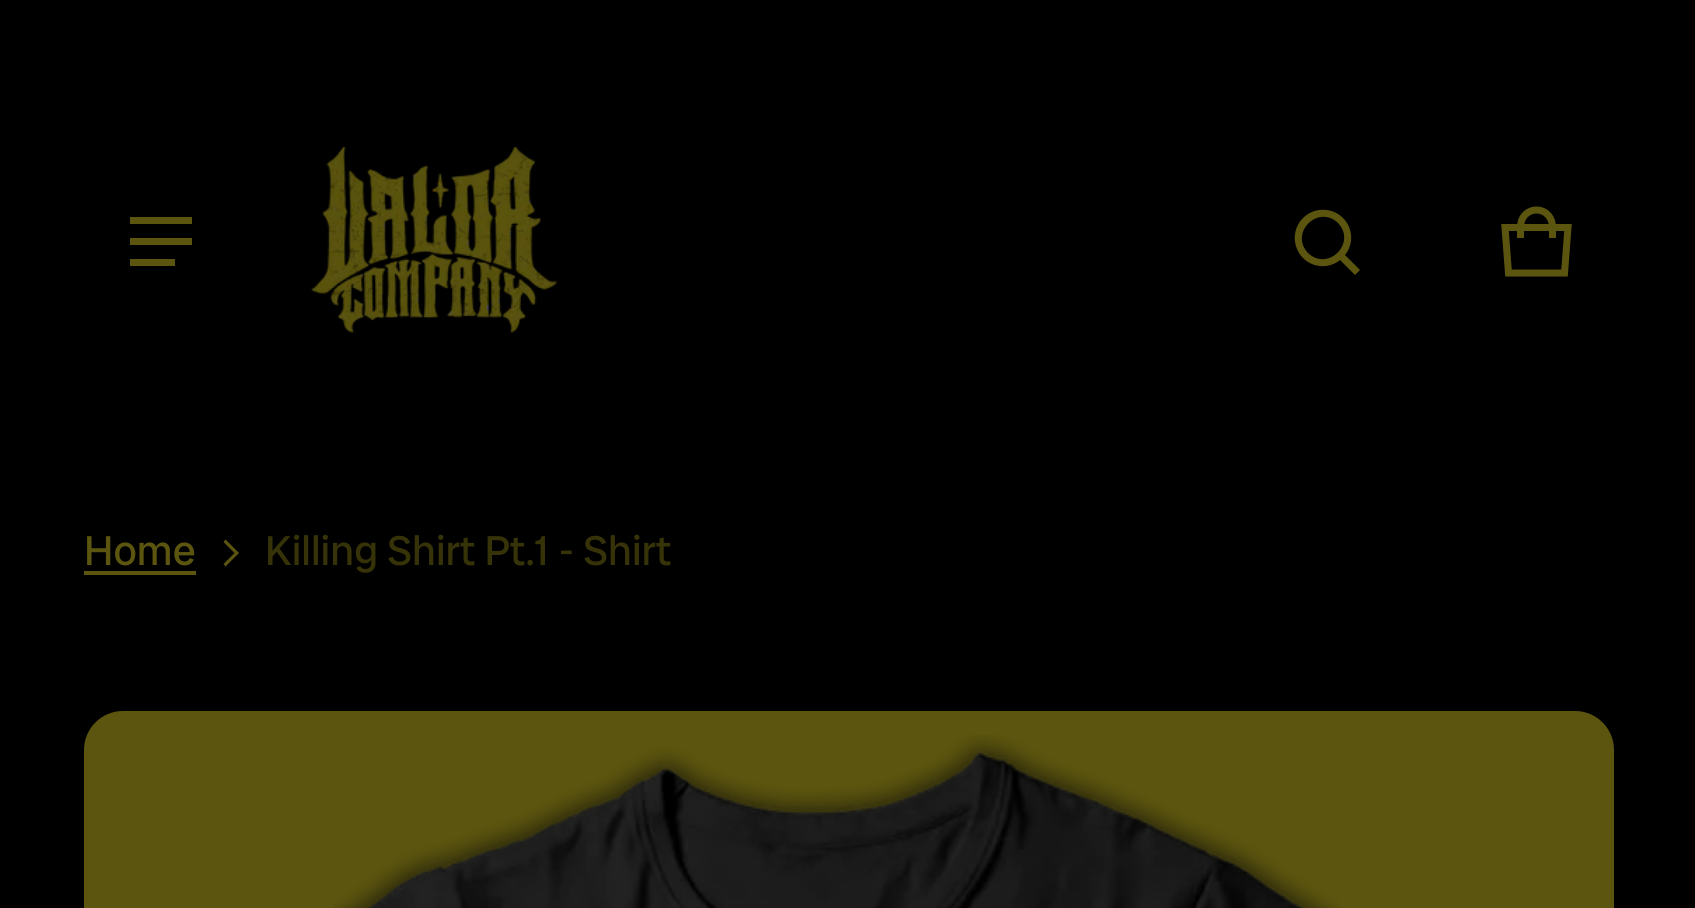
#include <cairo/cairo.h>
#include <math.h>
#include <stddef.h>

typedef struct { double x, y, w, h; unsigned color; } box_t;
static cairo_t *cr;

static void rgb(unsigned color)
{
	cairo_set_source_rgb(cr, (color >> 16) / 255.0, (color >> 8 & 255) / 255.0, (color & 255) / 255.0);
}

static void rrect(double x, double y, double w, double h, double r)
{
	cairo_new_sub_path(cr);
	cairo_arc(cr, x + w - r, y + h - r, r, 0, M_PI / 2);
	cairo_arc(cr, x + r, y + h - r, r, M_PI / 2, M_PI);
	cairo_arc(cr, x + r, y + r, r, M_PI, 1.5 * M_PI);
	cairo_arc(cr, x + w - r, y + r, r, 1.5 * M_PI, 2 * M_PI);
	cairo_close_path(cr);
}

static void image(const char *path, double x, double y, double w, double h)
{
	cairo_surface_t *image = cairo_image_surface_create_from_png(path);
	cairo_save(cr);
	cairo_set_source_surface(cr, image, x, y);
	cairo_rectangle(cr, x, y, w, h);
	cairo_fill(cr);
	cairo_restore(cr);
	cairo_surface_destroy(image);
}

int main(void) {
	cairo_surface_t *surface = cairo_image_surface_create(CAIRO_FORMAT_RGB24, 1695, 908);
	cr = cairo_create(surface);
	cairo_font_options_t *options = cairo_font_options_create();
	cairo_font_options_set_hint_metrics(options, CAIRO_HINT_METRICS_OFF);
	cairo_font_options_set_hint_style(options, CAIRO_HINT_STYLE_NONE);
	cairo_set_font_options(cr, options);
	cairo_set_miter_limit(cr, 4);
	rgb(0x000000);
	cairo_paint(cr);
	{
		static const box_t items[] = {
			{130, 217, 62, 7, 0x5c550f},
			{130, 238, 62, 7, 0x5c550f},
			{130, 259, 45, 7, 0x5c550f},
		};
		for (size_t i = 0; i < sizeof items / sizeof *items; i++) {
			rgb(items[i].color);
			cairo_rectangle(cr, items[i].x, items[i].y, items[i].w, items[i].h);
			cairo_fill(cr);
		}
	}
	image("img/1.png", 310, 147, 248, 186);
	cairo_set_fill_rule(cr, CAIRO_FILL_RULE_EVEN_ODD);
	cairo_new_path(cr);
	cairo_move_to(cr, 1340, 260);
	cairo_curve_to(cr, 1329, 269, 1313, 268, 1303, 258);
	cairo_curve_to(cr, 1292, 247, 1292, 229, 1303, 218);
	cairo_curve_to(cr, 1314, 207, 1332, 207, 1343, 218);
	cairo_curve_to(cr, 1353, 228, 1354, 244, 1345, 255);
	cairo_line_to(cr, 1360, 270);
	cairo_line_to(cr, 1355, 275);
	cairo_close_path(cr);
	cairo_move_to(cr, 1308, 253);
	cairo_curve_to(cr, 1289, 233, 1318, 204, 1338, 223);
	cairo_curve_to(cr, 1357, 243, 1328, 272, 1308, 253);
	cairo_close_path(cr);
	cairo_fill(cr);
	image("img/2.png", 1501, 206, 71, 71);
	cairo_rectangle(cr, 84, 571, 112, 4);
	cairo_fill(cr);
	cairo_new_path(cr);
	cairo_move_to(cr, 225.5, 539.5);
	cairo_line_to(cr, 223.5, 542);
	cairo_line_to(cr, 234.5, 553);
	cairo_line_to(cr, 223.5, 564);
	cairo_line_to(cr, 225.5, 566.5);
	cairo_line_to(cr, 239, 553);
	cairo_close_path(cr);
	cairo_fill(cr);
	rrect(84, 711, 1530, 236, 39);
	cairo_fill(cr);
	image("img/3.png", 334, 735, 1005, 173);
	cairo_select_font_face(cr, "Radio Canada Big", CAIRO_FONT_SLANT_NORMAL, CAIRO_FONT_WEIGHT_NORMAL);
	cairo_set_font_size(cr, 41.75);
	cairo_move_to(cr, 84, 565);
	cairo_show_text(cr, "Home");
	rgb(0x373309);
	cairo_move_to(cr, 265, 565);
	cairo_show_text(cr, "Killing Shirt Pt.1 - Shirt");
	cairo_surface_write_to_png(surface, "page.png");
	cairo_font_options_destroy(options);
	cairo_destroy(cr);
	cairo_surface_destroy(surface);
	return 0;
}
